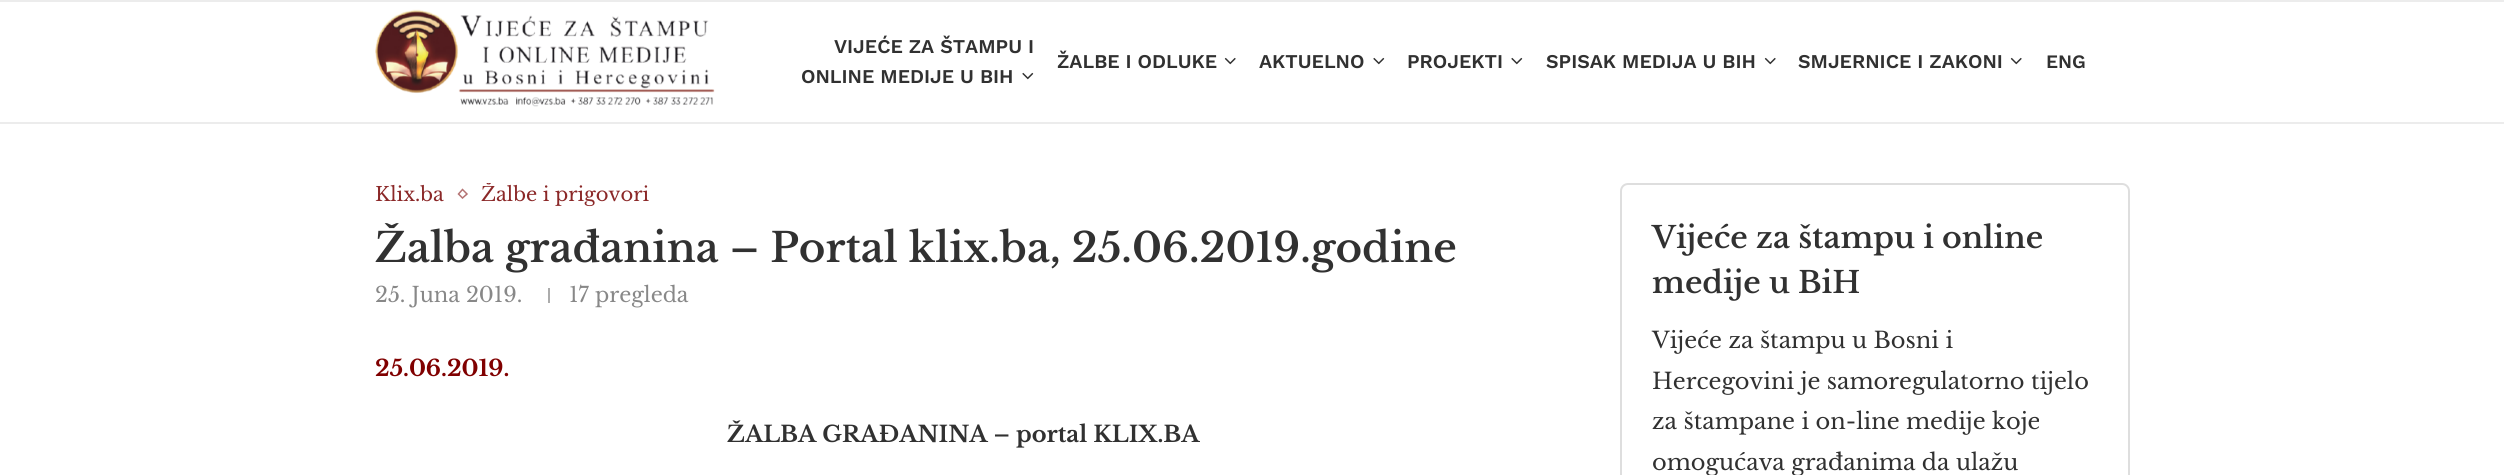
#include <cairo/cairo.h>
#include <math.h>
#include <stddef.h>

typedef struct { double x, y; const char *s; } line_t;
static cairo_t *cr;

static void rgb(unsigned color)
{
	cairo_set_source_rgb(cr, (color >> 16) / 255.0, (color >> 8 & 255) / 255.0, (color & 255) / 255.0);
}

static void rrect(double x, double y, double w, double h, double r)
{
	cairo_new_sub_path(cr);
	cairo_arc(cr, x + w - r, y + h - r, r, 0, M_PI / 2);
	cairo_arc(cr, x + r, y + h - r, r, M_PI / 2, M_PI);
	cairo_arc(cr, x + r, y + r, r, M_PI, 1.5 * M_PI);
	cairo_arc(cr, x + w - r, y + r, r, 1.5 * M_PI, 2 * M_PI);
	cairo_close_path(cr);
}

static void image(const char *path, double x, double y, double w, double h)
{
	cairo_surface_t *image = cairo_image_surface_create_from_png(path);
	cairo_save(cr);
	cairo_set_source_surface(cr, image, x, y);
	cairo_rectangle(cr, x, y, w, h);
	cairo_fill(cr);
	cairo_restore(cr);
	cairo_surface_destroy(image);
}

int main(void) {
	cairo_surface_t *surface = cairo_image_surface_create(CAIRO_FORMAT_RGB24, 2504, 475);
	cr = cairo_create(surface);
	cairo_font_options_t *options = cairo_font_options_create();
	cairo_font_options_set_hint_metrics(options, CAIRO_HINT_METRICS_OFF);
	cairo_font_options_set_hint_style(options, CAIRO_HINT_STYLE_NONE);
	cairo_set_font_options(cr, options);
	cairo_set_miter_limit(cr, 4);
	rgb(0xffffff);
	cairo_paint(cr);
	rgb(0xececec);
	cairo_rectangle(cr, 0, 0, 2504, 2);
	cairo_fill(cr);
	cairo_rectangle(cr, 0, 122, 2504, 2);
	cairo_fill(cr);
	image("img/1.png", 375, 9, 340, 98);
	image("img/2.png", 1022, 72, 12, 8);
	image("img/3.png", 1224, 57, 12, 8);
	image("img/2.png", 1373, 57, 12, 8);
	image("img/2.png", 1511, 57, 12, 8);
	image("img/3.png", 1764, 57, 12, 8);
	image("img/3.png", 2010, 57, 12, 8);
	cairo_new_path(cr);
	cairo_move_to(cr, 462.5, 189.5);
	cairo_line_to(cr, 467, 194);
	cairo_line_to(cr, 462.5, 198);
	cairo_line_to(cr, 458.5, 194);
	cairo_close_path(cr);
	rgb(0xb47373);
	cairo_set_line_width(cr, 1.5);
	cairo_stroke(cr);
	rgb(0xacacac);
	cairo_rectangle(cr, 548, 288, 2, 15);
	cairo_fill(cr);
	rrect(1621, 184, 508, 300, 7);
	rgb(0xdedede);
	cairo_set_line_width(cr, 2);
	cairo_stroke(cr);
	cairo_select_font_face(cr, "Work Sans SemiBold", CAIRO_FONT_SLANT_NORMAL, CAIRO_FONT_WEIGHT_NORMAL);
	cairo_set_font_size(cr, 19.5);
	rgb(0x313131);
	{
		static const line_t items[] = {
			{834, 53, "VIJEĆE ZA ŠTAMPU I"},
			{801, 83, "ONLINE MEDIJE U BIH"},
			{1057, 68, "ŽALBE I ODLUKE"},
			{1259, 68, "AKTUELNO"},
			{1407, 68, "PROJEKTI"},
			{1546, 68, "SPISAK MEDIJA U BIH"},
			{1798, 68, "SMJERNICE I ZAKONI"},
		};
		for (size_t i = 0; i < sizeof items / sizeof *items; i++) {
			cairo_move_to(cr, items[i].x, items[i].y);
			cairo_show_text(cr, items[i].s);
		}
	}
	cairo_set_font_size(cr, 19);
	cairo_move_to(cr, 2046, 68);
	cairo_show_text(cr, "ENG");
	cairo_select_font_face(cr, "Libre Baskerville", CAIRO_FONT_SLANT_NORMAL, CAIRO_FONT_WEIGHT_NORMAL);
	cairo_set_font_size(cr, 19.5);
	rgb(0x8b2828);
	cairo_move_to(cr, 375, 201);
	cairo_show_text(cr, "Klix.ba");
	cairo_save(cr);
	cairo_rectangle(cr, 375, 183, 1170, 32);
	cairo_clip(cr);
	cairo_move_to(cr, 481, 201);
	cairo_show_text(cr, "Žalbe i prigovori");
	cairo_restore(cr);
	cairo_select_font_face(cr, "Libre Baskerville SemiBold", CAIRO_FONT_SLANT_NORMAL, CAIRO_FONT_WEIGHT_NORMAL);
	cairo_set_font_size(cr, 40.5);
	rgb(0x313131);
	cairo_move_to(cr, 375, 262);
	cairo_show_text(cr, "Žalba građanina – Portal klix.ba, 25.06.2019.godine");
	cairo_select_font_face(cr, "Libre Baskerville", CAIRO_FONT_SLANT_NORMAL, CAIRO_FONT_WEIGHT_NORMAL);
	cairo_set_font_size(cr, 21);
	rgb(0x888888);
	cairo_move_to(cr, 375, 302);
	cairo_show_text(cr, "25. Juna 2019.");
	cairo_move_to(cr, 569, 302);
	cairo_show_text(cr, "17 pregleda");
	cairo_select_font_face(cr, "Libre Baskerville", CAIRO_FONT_SLANT_NORMAL, CAIRO_FONT_WEIGHT_BOLD);
	cairo_set_font_size(cr, 22.5);
	rgb(0x800000);
	cairo_move_to(cr, 375, 376);
	cairo_show_text(cr, "25.06.2019.");
	rgb(0x313131);
	cairo_move_to(cr, 727, 442);
	cairo_show_text(cr, "ŽALBA GRAĐANINA – portal KLIX.BA");
	cairo_select_font_face(cr, "Libre Baskerville SemiBold", CAIRO_FONT_SLANT_NORMAL, CAIRO_FONT_WEIGHT_NORMAL);
	cairo_set_font_size(cr, 30);
	cairo_move_to(cr, 1652, 248);
	cairo_show_text(cr, "Vijeće za štampu i online");
	cairo_move_to(cr, 1652, 293);
	cairo_show_text(cr, "medije u BiH");
	cairo_select_font_face(cr, "Libre Baskerville", CAIRO_FONT_SLANT_NORMAL, CAIRO_FONT_WEIGHT_NORMAL);
	cairo_set_font_size(cr, 22.5);
	{
		static const line_t items[] = {
			{1652, 348, "Vijeće za štampu u Bosni i"},
			{1652, 389, "Hercegovini je samoregulatorno tijelo"},
			{1652, 429, "za štampane i on-line medije koje"},
			{1652, 470, "omogućava građanima da ulažu"},
		};
		for (size_t i = 0; i < sizeof items / sizeof *items; i++) {
			cairo_move_to(cr, items[i].x, items[i].y);
			cairo_show_text(cr, items[i].s);
		}
	}
	cairo_surface_write_to_png(surface, "page.png");
	cairo_font_options_destroy(options);
	cairo_destroy(cr);
	cairo_surface_destroy(surface);
	return 0;
}
